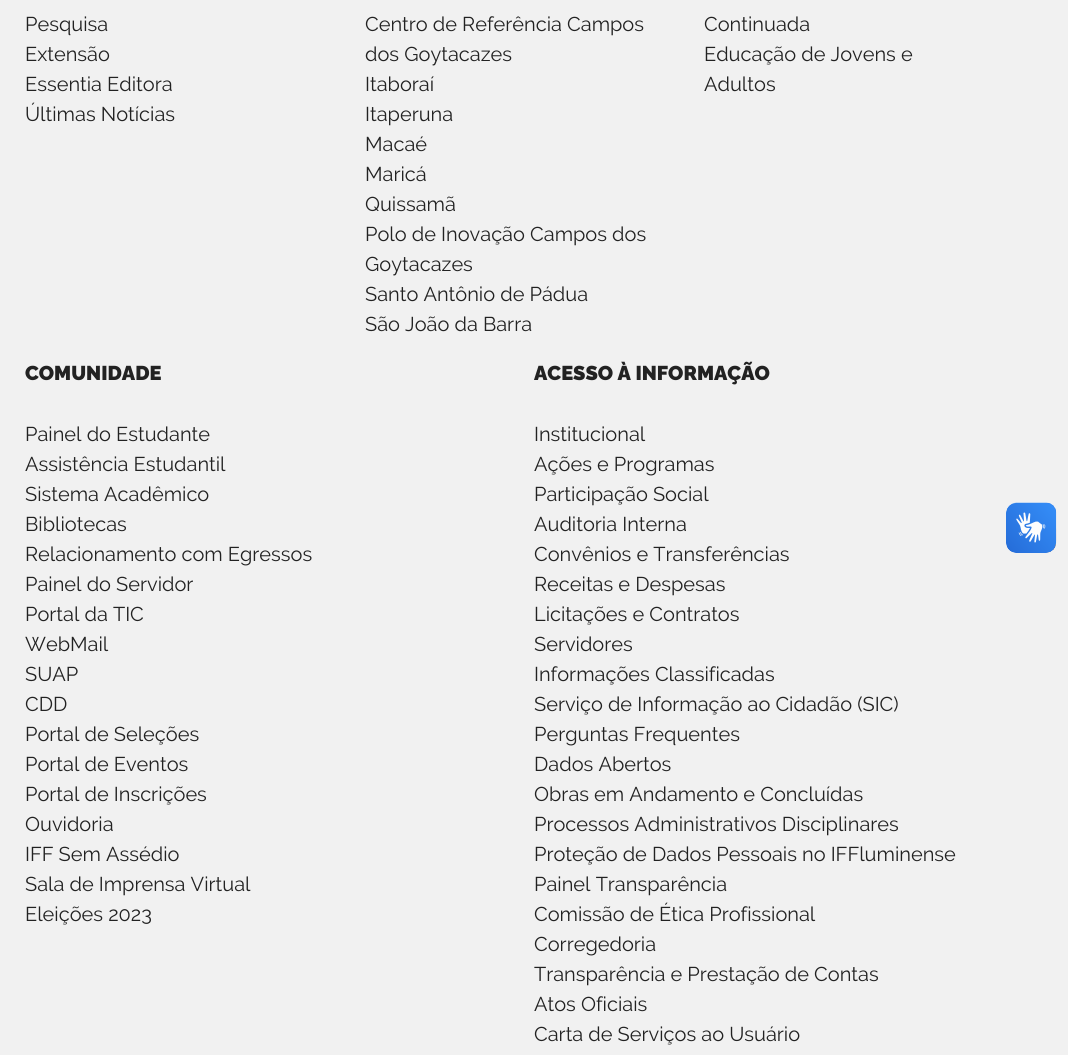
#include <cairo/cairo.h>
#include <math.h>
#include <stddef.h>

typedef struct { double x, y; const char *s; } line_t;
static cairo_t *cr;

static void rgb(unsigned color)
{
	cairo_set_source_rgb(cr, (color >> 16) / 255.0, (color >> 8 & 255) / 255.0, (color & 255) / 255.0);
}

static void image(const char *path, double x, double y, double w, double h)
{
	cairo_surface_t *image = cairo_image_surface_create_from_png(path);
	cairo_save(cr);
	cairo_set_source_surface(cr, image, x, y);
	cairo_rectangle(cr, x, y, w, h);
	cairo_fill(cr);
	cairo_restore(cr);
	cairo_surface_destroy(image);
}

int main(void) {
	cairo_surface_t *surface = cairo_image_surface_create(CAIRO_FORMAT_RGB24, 1068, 1055);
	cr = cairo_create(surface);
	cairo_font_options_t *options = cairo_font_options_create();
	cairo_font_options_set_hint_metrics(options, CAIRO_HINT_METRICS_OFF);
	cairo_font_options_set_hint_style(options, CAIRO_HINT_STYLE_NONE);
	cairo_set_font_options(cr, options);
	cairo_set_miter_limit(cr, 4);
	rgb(0xf1f1f1);
	cairo_paint(cr);
	image("img/1.png", 1006, 502, 51, 51);
	image("img/2.png", 1006, 503, 50, 50);
	cairo_select_font_face(cr, "Raleway", CAIRO_FONT_SLANT_NORMAL, CAIRO_FONT_WEIGHT_NORMAL);
	cairo_set_font_size(cr, 20);
	rgb(0x222222);
	{
		static const line_t items[] = {
			{25, 31, "Pesquisa"},
			{25, 61, "Extensão"},
			{25, 91, "Essentia Editora"},
			{25, 121, "Últimas Notícias"},
			{365, 31, "Centro de Referência Campos"},
			{365, 61, "dos Goytacazes"},
			{365, 91, "Itaboraí"},
			{365, 121, "Itaperuna"},
			{365, 151, "Macaé"},
			{365, 181, "Maricá"},
			{365, 211, "Quissamã"},
			{365, 241, "Polo de Inovação Campos dos"},
			{365, 271, "Goytacazes"},
			{365, 301, "Santo Antônio de Pádua"},
			{365, 331, "São João da Barra"},
			{704, 31, "Continuada"},
			{704, 61, "Educação de Jovens e"},
			{704, 91, "Adultos"},
		};
		for (size_t i = 0; i < sizeof items / sizeof *items; i++) {
			cairo_move_to(cr, items[i].x, items[i].y);
			cairo_show_text(cr, items[i].s);
		}
	}
	cairo_select_font_face(cr, "Raleway Black", CAIRO_FONT_SLANT_NORMAL, CAIRO_FONT_WEIGHT_NORMAL);
	cairo_move_to(cr, 25, 380);
	cairo_show_text(cr, "COMUNIDADE");
	cairo_select_font_face(cr, "Raleway", CAIRO_FONT_SLANT_NORMAL, CAIRO_FONT_WEIGHT_NORMAL);
	{
		static const line_t items[] = {
			{25, 441, "Painel do Estudante"},
			{25, 471, "Assistência Estudantil"},
			{25, 501, "Sistema Acadêmico"},
			{25, 531, "Bibliotecas"},
			{25, 561, "Relacionamento com Egressos"},
			{25, 591, "Painel do Servidor"},
			{25, 621, "Portal da TIC"},
			{25, 651, "WebMail"},
			{25, 681, "SUAP"},
			{25, 711, "CDD"},
			{25, 741, "Portal de Seleções"},
			{25, 771, "Portal de Eventos"},
			{25, 801, "Portal de Inscrições"},
			{25, 831, "Ouvidoria"},
			{25, 861, "IFF Sem Assédio"},
			{25, 891, "Sala de Imprensa Virtual"},
			{25, 921, "Eleições 2023"},
		};
		for (size_t i = 0; i < sizeof items / sizeof *items; i++) {
			cairo_move_to(cr, items[i].x, items[i].y);
			cairo_show_text(cr, items[i].s);
		}
	}
	cairo_select_font_face(cr, "Raleway Black", CAIRO_FONT_SLANT_NORMAL, CAIRO_FONT_WEIGHT_NORMAL);
	cairo_move_to(cr, 534, 380);
	cairo_show_text(cr, "ACESSO À INFORMAÇÃO");
	cairo_select_font_face(cr, "Raleway", CAIRO_FONT_SLANT_NORMAL, CAIRO_FONT_WEIGHT_NORMAL);
	{
		static const line_t items[] = {
			{534, 441, "Institucional"},
			{534, 471, "Ações e Programas"},
			{534, 501, "Participação Social"},
			{534, 531, "Auditoria Interna"},
			{534, 561, "Convênios e Transferências"},
			{534, 591, "Receitas e Despesas"},
			{534, 621, "Licitações e Contratos"},
			{534, 651, "Servidores"},
			{534, 681, "Informações Classificadas"},
			{534, 711, "Serviço de Informação ao Cidadão (SIC)"},
			{534, 741, "Perguntas Frequentes"},
			{534, 771, "Dados Abertos"},
			{534, 801, "Obras em Andamento e Concluídas"},
			{534, 831, "Processos Administrativos Disciplinares"},
			{534, 861, "Proteção de Dados Pessoais no IFFluminense"},
			{534, 891, "Painel Transparência"},
			{534, 921, "Comissão de Ética Profissional"},
			{534, 951, "Corregedoria"},
			{534, 981, "Transparência e Prestação de Contas"},
			{534, 1011, "Atos Oficiais"},
			{534, 1041, "Carta de Serviços ao Usuário"},
		};
		for (size_t i = 0; i < sizeof items / sizeof *items; i++) {
			cairo_move_to(cr, items[i].x, items[i].y);
			cairo_show_text(cr, items[i].s);
		}
	}
	cairo_surface_write_to_png(surface, "page.png");
	cairo_font_options_destroy(options);
	cairo_destroy(cr);
	cairo_surface_destroy(surface);
	return 0;
}
